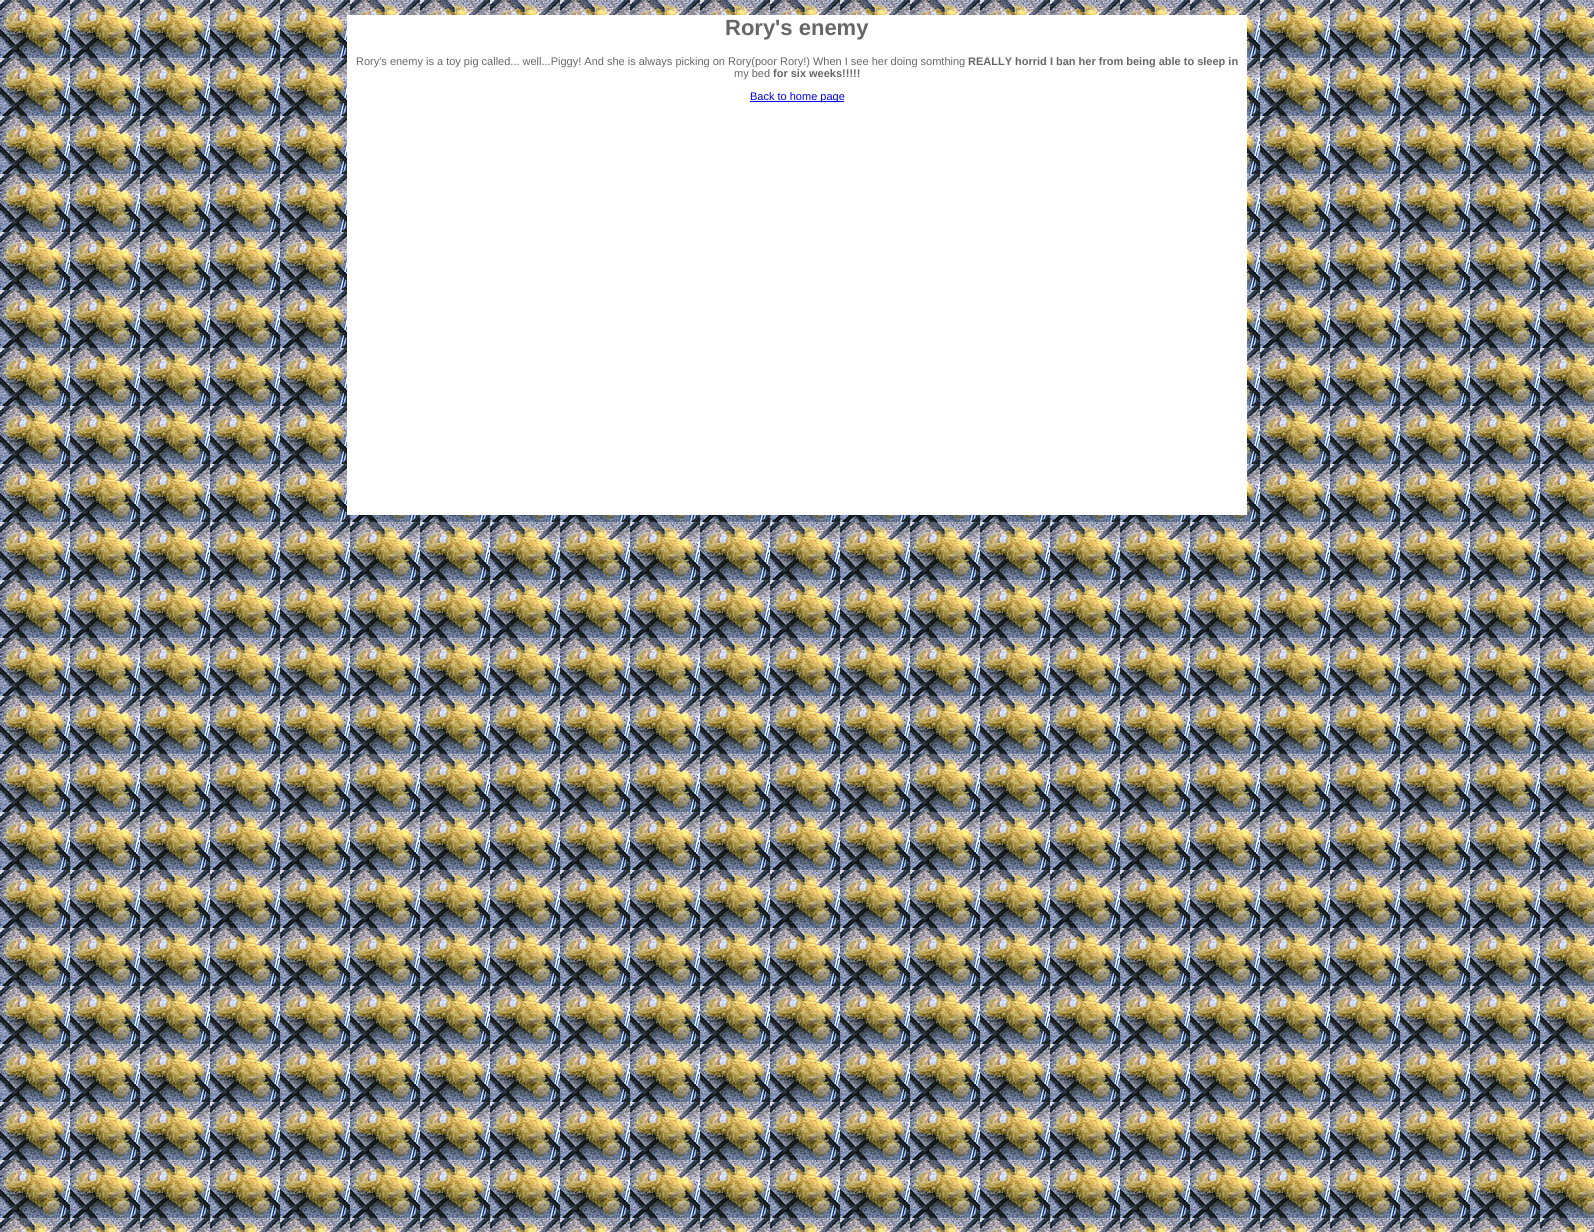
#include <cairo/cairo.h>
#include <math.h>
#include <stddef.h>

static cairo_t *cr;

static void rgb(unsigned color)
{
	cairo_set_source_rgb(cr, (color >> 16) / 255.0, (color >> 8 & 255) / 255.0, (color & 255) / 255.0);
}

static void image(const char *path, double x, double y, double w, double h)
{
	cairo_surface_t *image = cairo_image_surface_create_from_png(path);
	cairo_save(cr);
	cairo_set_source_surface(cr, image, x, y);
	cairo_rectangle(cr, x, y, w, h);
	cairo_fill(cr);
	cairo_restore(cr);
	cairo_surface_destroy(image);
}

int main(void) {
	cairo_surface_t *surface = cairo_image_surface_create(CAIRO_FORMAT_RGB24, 1594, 1232);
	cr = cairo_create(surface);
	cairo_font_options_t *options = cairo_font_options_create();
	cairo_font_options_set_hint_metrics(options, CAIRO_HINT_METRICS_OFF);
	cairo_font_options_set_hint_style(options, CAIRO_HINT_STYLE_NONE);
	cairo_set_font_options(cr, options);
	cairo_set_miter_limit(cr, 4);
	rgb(0xffffff);
	cairo_paint(cr);
	image("img/1.png", 0, 0, 1594, 1232);
	rgb(0xffffff);
	cairo_rectangle(cr, 347, 15, 900, 500);
	cairo_fill(cr);
	rgb(0x0000ee);
	cairo_rectangle(cr, 750, 101, 94, 1);
	cairo_fill(cr);
	cairo_select_font_face(cr, "Liberation Sans", CAIRO_FONT_SLANT_NORMAL, CAIRO_FONT_WEIGHT_BOLD);
	cairo_set_font_size(cr, 22);
	rgb(0x666666);
	cairo_move_to(cr, 725, 35);
	cairo_show_text(cr, "Rory's enemy");
	cairo_select_font_face(cr, "Liberation Sans", CAIRO_FONT_SLANT_NORMAL, CAIRO_FONT_WEIGHT_NORMAL);
	cairo_set_font_size(cr, 11);
	cairo_move_to(cr, 356, 65);
	cairo_show_text(cr, "Rory's enemy is a toy pig called... well...Piggy! And she is always picking on Rory(poor Rory!) When I see her doing somthing");
	cairo_select_font_face(cr, "Liberation Sans", CAIRO_FONT_SLANT_NORMAL, CAIRO_FONT_WEIGHT_BOLD);
	cairo_move_to(cr, 968, 65);
	cairo_show_text(cr, "REALLY horrid I ban her from being able to sleep in");
	cairo_select_font_face(cr, "Liberation Sans", CAIRO_FONT_SLANT_NORMAL, CAIRO_FONT_WEIGHT_NORMAL);
	cairo_move_to(cr, 734, 77);
	cairo_show_text(cr, "my bed");
	cairo_select_font_face(cr, "Liberation Sans", CAIRO_FONT_SLANT_NORMAL, CAIRO_FONT_WEIGHT_BOLD);
	cairo_move_to(cr, 773, 77);
	cairo_show_text(cr, "for six weeks!!!!!");
	cairo_select_font_face(cr, "Liberation Sans", CAIRO_FONT_SLANT_NORMAL, CAIRO_FONT_WEIGHT_NORMAL);
	rgb(0x0000ee);
	cairo_move_to(cr, 750, 100);
	cairo_show_text(cr, "Back to home page");
	cairo_surface_write_to_png(surface, "page.png");
	cairo_font_options_destroy(options);
	cairo_destroy(cr);
	cairo_surface_destroy(surface);
	return 0;
}
